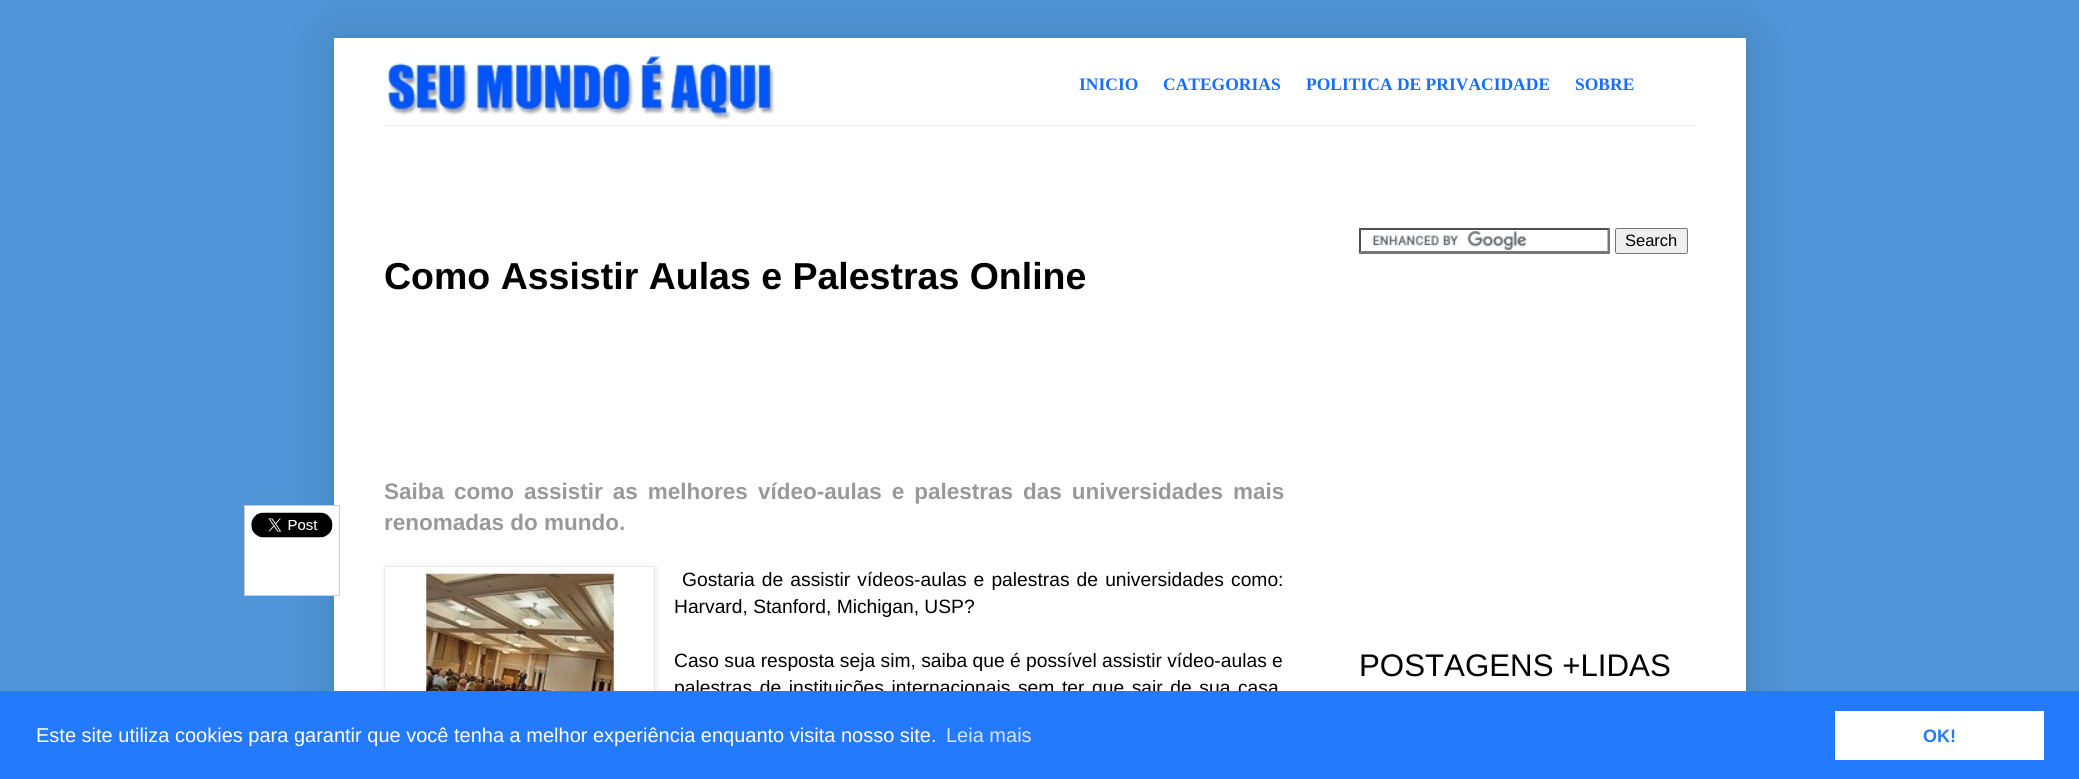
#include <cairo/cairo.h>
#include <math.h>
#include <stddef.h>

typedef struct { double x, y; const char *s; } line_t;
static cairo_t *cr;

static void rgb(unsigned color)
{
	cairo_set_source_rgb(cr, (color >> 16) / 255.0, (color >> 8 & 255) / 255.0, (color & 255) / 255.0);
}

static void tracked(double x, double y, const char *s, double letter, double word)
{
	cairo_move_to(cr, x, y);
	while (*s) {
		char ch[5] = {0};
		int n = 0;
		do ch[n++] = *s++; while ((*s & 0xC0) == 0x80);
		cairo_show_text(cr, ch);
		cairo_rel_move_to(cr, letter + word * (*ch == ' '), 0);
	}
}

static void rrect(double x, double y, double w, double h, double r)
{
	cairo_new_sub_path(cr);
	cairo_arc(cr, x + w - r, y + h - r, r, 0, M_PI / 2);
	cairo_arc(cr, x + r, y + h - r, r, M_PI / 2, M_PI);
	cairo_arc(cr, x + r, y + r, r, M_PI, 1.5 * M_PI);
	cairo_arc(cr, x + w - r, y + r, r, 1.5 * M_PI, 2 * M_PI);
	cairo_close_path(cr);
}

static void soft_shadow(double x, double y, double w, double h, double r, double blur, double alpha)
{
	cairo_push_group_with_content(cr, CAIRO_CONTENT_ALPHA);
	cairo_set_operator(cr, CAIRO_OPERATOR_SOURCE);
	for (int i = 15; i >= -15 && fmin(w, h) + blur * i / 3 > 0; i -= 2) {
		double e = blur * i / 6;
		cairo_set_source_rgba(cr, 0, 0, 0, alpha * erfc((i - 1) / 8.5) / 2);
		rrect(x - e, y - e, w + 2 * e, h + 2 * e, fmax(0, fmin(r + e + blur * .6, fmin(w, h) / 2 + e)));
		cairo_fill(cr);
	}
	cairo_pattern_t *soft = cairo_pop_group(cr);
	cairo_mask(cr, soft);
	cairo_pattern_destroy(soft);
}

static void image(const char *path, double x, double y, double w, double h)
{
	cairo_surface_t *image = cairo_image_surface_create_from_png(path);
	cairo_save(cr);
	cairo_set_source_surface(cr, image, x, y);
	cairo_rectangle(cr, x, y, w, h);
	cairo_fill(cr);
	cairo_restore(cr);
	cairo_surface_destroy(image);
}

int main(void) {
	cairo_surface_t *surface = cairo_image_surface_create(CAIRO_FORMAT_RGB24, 2079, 779);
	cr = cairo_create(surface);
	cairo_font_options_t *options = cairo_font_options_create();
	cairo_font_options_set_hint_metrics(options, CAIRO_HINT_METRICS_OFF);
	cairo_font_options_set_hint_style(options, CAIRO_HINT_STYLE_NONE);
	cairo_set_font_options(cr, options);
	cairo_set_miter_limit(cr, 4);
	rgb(0x5095d8);
	cairo_paint(cr);
	rgb(0x000000);
	soft_shadow(334, 38, 1412, 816, 0, 25, 0.15);
	rgb(0xffffff);
	cairo_rectangle(cr, 334, 38, 1412, 653);
	cairo_fill(cr);
	image("img/1.png", 387, 55, 388, 65);
	rgb(0xe8e8e8);
	cairo_rectangle(cr, 384, 125, 1312, 1);
	cairo_fill(cr);
	rgb(0xffffff);
	cairo_rectangle(cr, 245, 506, 89, 89);
	cairo_fill(cr);
	cairo_rectangle(cr, 244.5, 505.5, 95, 90);
	rgb(0xcccccc);
	cairo_set_line_width(cr, 1);
	cairo_stroke(cr);
	image("img/2.png", 251, 512, 82, 26);
	rgb(0x000000);
	soft_shadow(385, 568, 271, 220, 0, 3, 0.1);
	rgb(0xffffff);
	cairo_rectangle(cr, 385, 567, 269, 124);
	cairo_fill(cr);
	cairo_rectangle(cr, 384.5, 566.5, 270, 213);
	rgb(0xe8e8e8);
	cairo_stroke(cr);
	image("img/3.png", 426, 573, 188, 118);
	image("img/4.png", 1372, 231, 155, 19);
	rgb(0x4f4f4f);
	cairo_new_path(cr);
	cairo_move_to(cr, 1359, 228);
	cairo_line_to(cr, 1610, 228);
	cairo_line_to(cr, 1608, 230);
	cairo_line_to(cr, 1361, 230);
	cairo_close_path(cr);
	cairo_fill(cr);
	rgb(0x767676);
	cairo_new_path(cr);
	cairo_move_to(cr, 1610, 227.5);
	cairo_line_to(cr, 1610, 254);
	cairo_line_to(cr, 1607.5, 251);
	cairo_line_to(cr, 1607.5, 230);
	cairo_close_path(cr);
	cairo_fill(cr);
	cairo_new_path(cr);
	cairo_move_to(cr, 1610, 254);
	cairo_line_to(cr, 1359, 254);
	cairo_line_to(cr, 1361, 251);
	cairo_line_to(cr, 1608, 251);
	cairo_close_path(cr);
	cairo_fill(cr);
	rgb(0x4f4f4f);
	cairo_new_path(cr);
	cairo_move_to(cr, 1359, 254);
	cairo_line_to(cr, 1359, 227.5);
	cairo_line_to(cr, 1361, 230);
	cairo_line_to(cr, 1361, 251);
	cairo_close_path(cr);
	cairo_fill(cr);
	rgb(0xefefef);
	rrect(1615.5, 228.5, 72, 25, 2);
	cairo_fill_preserve(cr);
	rgb(0x767676);
	cairo_stroke(cr);
	cairo_select_font_face(cr, "Liberation Serif", CAIRO_FONT_SLANT_NORMAL, CAIRO_FONT_WEIGHT_BOLD);
	cairo_set_font_size(cr, 17.5);
	rgb(0x156eff);
	{
		static const line_t items[] = {
			{1079, 90, "INICIO"},
			{1163, 90, "CATEGORIAS"},
			{1306, 90, "POLITICA DE PRIVACIDADE"},
			{1575, 90, "SOBRE"},
		};
		for (size_t i = 0; i < sizeof items / sizeof *items; i++) {
			cairo_move_to(cr, items[i].x, items[i].y);
			cairo_show_text(cr, items[i].s);
		}
	}
	cairo_select_font_face(cr, "Liberation Sans", CAIRO_FONT_SLANT_NORMAL, CAIRO_FONT_WEIGHT_BOLD);
	cairo_set_font_size(cr, 37.5);
	rgb(0x000000);
	cairo_move_to(cr, 384, 289);
	cairo_show_text(cr, "Como Assistir Aulas e Palestras Online");
	cairo_set_font_size(cr, 22.5);
	rgb(0x999999);
	tracked(384, 499, "Saiba como assistir as melhores vídeo-aulas e palestras das universidades mais", 0, 3.75);
	cairo_move_to(cr, 384, 530);
	cairo_show_text(cr, "renomadas do mundo.");
	cairo_select_font_face(cr, "Liberation Sans", CAIRO_FONT_SLANT_NORMAL, CAIRO_FONT_WEIGHT_NORMAL);
	cairo_set_font_size(cr, 19.25);
	rgb(0x000000);
	tracked(682, 586, "Gostaria de assistir vídeos-aulas e palestras de universidades como:", 0, 1.75);
	cairo_move_to(cr, 674, 613);
	cairo_show_text(cr, "Harvard, Stanford, Michigan, USP?");
	cairo_move_to(cr, 674, 667);
	cairo_show_text(cr, "Caso sua resposta seja sim, saiba que é possível assistir vídeo-aulas e");
	tracked(674, 694, "palestras de instituições internacionais sem ter que sair de sua casa", 0, 2.25);
	cairo_set_font_size(cr, 16.5);
	cairo_move_to(cr, 1625, 246);
	cairo_show_text(cr, "Search");
	cairo_set_font_size(cr, 31.25);
	cairo_move_to(cr, 1359, 676);
	cairo_show_text(cr, "POSTAGENS +LIDAS");
	rgb(0x237afc);
	cairo_rectangle(cr, 0, 691, 2079, 88);
	cairo_fill(cr);
	cairo_set_font_size(cr, 20);
	rgb(0xffffff);
	cairo_move_to(cr, 36, 742);
	cairo_show_text(cr, "Este site utiliza cookies para garantir que você tenha a melhor experiência enquanto visita nosso site.");
	rgb(0xd3e4fe);
	cairo_move_to(cr, 946, 742);
	cairo_show_text(cr, "Leia mais");
	rgb(0xffffff);
	cairo_rectangle(cr, 1835, 711, 209, 49);
	cairo_fill(cr);
	cairo_select_font_face(cr, "Liberation Sans", CAIRO_FONT_SLANT_NORMAL, CAIRO_FONT_WEIGHT_BOLD);
	cairo_set_font_size(cr, 18);
	rgb(0x237afc);
	cairo_move_to(cr, 1923, 742);
	cairo_show_text(cr, "OK!");
	cairo_surface_write_to_png(surface, "page.png");
	cairo_font_options_destroy(options);
	cairo_destroy(cr);
	cairo_surface_destroy(surface);
	return 0;
}
